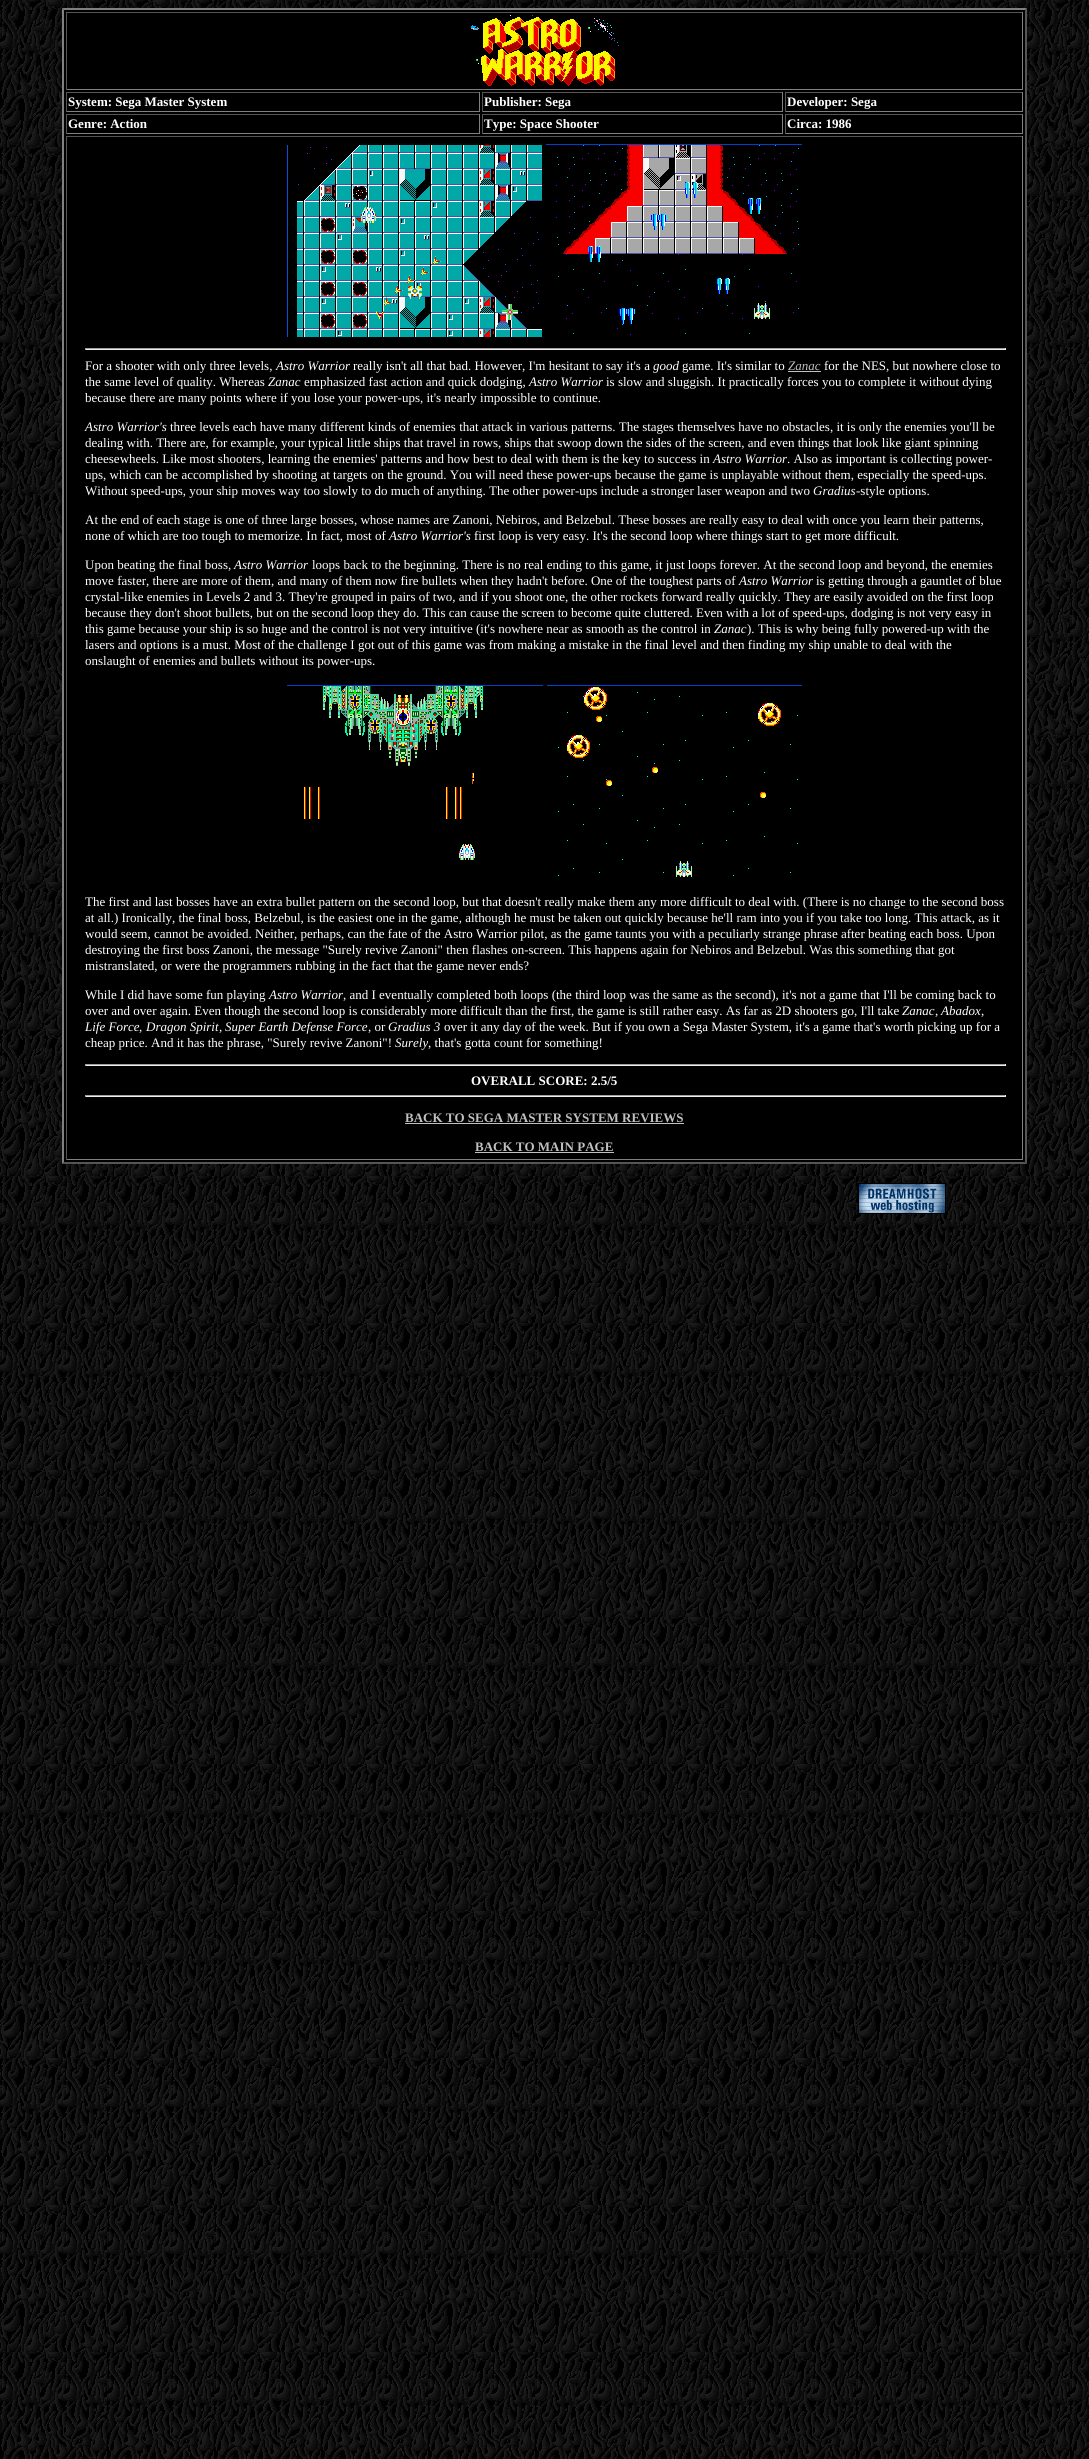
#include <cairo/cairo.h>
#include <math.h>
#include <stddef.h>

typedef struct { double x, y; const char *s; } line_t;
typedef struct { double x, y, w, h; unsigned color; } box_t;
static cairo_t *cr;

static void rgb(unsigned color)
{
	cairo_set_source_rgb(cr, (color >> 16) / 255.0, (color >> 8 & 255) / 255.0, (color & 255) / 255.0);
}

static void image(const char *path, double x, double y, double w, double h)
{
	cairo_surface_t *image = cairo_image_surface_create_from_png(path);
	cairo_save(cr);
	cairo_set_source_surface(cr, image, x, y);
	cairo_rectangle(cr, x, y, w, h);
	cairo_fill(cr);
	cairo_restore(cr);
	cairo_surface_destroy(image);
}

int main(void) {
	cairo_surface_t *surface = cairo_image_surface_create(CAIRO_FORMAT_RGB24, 1089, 2459);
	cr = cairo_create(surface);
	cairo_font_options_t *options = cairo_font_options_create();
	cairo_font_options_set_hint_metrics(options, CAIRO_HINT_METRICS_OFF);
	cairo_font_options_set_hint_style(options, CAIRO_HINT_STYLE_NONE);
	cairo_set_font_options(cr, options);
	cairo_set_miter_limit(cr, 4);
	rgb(0xffffff);
	cairo_paint(cr);
	image("img/1.png", 0, 0, 1089, 2459);
	rgb(0x000000);
	cairo_rectangle(cr, 62, 8, 965, 1156);
	cairo_fill(cr);
	rgb(0x808080);
	cairo_new_path(cr);
	cairo_move_to(cr, 62, 8);
	cairo_line_to(cr, 1027, 8);
	cairo_line_to(cr, 1025, 10);
	cairo_line_to(cr, 64, 10);
	cairo_close_path(cr);
	cairo_fill(cr);
	rgb(0x555555);
	cairo_new_path(cr);
	cairo_move_to(cr, 1027, 8);
	cairo_line_to(cr, 1027, 1164);
	cairo_line_to(cr, 1025, 1162);
	cairo_line_to(cr, 1025, 10);
	cairo_close_path(cr);
	cairo_fill(cr);
	cairo_new_path(cr);
	cairo_move_to(cr, 1027, 1164);
	cairo_line_to(cr, 62, 1164);
	cairo_line_to(cr, 64, 1162);
	cairo_line_to(cr, 1025, 1162);
	cairo_close_path(cr);
	cairo_fill(cr);
	rgb(0x808080);
	cairo_new_path(cr);
	cairo_move_to(cr, 62, 1164);
	cairo_line_to(cr, 62, 8);
	cairo_line_to(cr, 64, 10);
	cairo_line_to(cr, 64, 1162);
	cairo_close_path(cr);
	cairo_fill(cr);
	{
		static const box_t items[] = {
			{66, 12, 957, 1, 0x555555},
			{1022, 12, 1, 78, 0x808080},
			{66, 89, 957, 1, 0x808080},
			{66, 12, 1, 78, 0x555555},
		};
		for (size_t i = 0; i < sizeof items / sizeof *items; i++) {
			rgb(items[i].color);
			cairo_rectangle(cr, items[i].x, items[i].y, items[i].w, items[i].h);
			cairo_fill(cr);
		}
	}
	image("img/2.png", 471, 15, 148, 71);
	{
		static const box_t items[] = {
			{66, 92, 414, 1, 0x555555},
			{479, 92, 1, 20, 0x808080},
			{66, 111, 414, 1, 0x808080},
			{66, 92, 1, 20, 0x555555},
			{482, 92, 301, 1, 0x555555},
			{782, 92, 1, 20, 0x808080},
			{482, 111, 301, 1, 0x808080},
			{482, 92, 1, 20, 0x555555},
			{785, 92, 238, 1, 0x555555},
			{1022, 92, 1, 20, 0x808080},
			{785, 111, 238, 1, 0x808080},
			{785, 92, 1, 20, 0x555555},
			{66, 114, 414, 1, 0x555555},
			{479, 114, 1, 20, 0x808080},
			{66, 133, 414, 1, 0x808080},
			{66, 114, 1, 20, 0x555555},
			{482, 114, 301, 1, 0x555555},
			{782, 114, 1, 20, 0x808080},
			{482, 133, 301, 1, 0x808080},
			{482, 114, 1, 20, 0x555555},
			{785, 114, 238, 1, 0x555555},
			{1022, 114, 1, 20, 0x808080},
			{785, 133, 238, 1, 0x808080},
			{785, 114, 1, 20, 0x555555},
			{66, 136, 957, 1, 0x555555},
			{1022, 136, 1, 1024, 0x808080},
			{66, 1159, 957, 1, 0x808080},
			{66, 136, 1, 1024, 0x555555},
		};
		for (size_t i = 0; i < sizeof items / sizeof *items; i++) {
			rgb(items[i].color);
			cairo_rectangle(cr, items[i].x, items[i].y, items[i].w, items[i].h);
			cairo_fill(cr);
		}
	}
	image("img/3.png", 287, 145, 255, 192);
	image("img/4.png", 546, 144, 256, 191);
	{
		static const box_t items[] = {
			{85, 348, 921, 1, 0x9f9f9f},
			{1005, 348, 1, 2, 0xeeeeee},
			{85, 349, 921, 1, 0xeeeeee},
			{85, 348, 1, 2, 0x9f9f9f},
			{788, 371, 33, 1, 0xc0c0c0},
		};
		for (size_t i = 0; i < sizeof items / sizeof *items; i++) {
			rgb(items[i].color);
			cairo_rectangle(cr, items[i].x, items[i].y, items[i].w, items[i].h);
			cairo_fill(cr);
		}
	}
	image("img/5.png", 287, 685, 256, 175);
	image("img/6.png", 547, 685, 255, 192);
	{
		static const box_t items[] = {
			{85, 1064, 921, 1, 0x9f9f9f},
			{1005, 1064, 1, 2, 0xeeeeee},
			{85, 1065, 921, 1, 0xeeeeee},
			{85, 1064, 1, 2, 0x9f9f9f},
			{85, 1095, 921, 1, 0x9f9f9f},
			{1005, 1095, 1, 2, 0xeeeeee},
			{85, 1096, 921, 1, 0xeeeeee},
			{85, 1095, 1, 2, 0x9f9f9f},
			{405, 1123, 279, 1, 0xc0c0c0},
			{475, 1152, 139, 1, 0xc0c0c0},
		};
		for (size_t i = 0; i < sizeof items / sizeof *items; i++) {
			rgb(items[i].color);
			cairo_rectangle(cr, items[i].x, items[i].y, items[i].w, items[i].h);
			cairo_fill(cr);
		}
	}
	image("img/7.png", 858, 1183, 88, 31);
	cairo_select_font_face(cr, "Liberation Serif", CAIRO_FONT_SLANT_NORMAL, CAIRO_FONT_WEIGHT_BOLD);
	cairo_set_font_size(cr, 13);
	rgb(0xffffff);
	{
		static const line_t items[] = {
			{68, 106, "System: Sega Master System"},
			{484, 106, "Publisher: Sega"},
			{787, 106, "Developer: Sega"},
			{68, 128, "Genre: Action"},
			{484, 128, "Type: Space Shooter"},
			{787, 128, "Circa: 1986"},
		};
		for (size_t i = 0; i < sizeof items / sizeof *items; i++) {
			cairo_move_to(cr, items[i].x, items[i].y);
			cairo_show_text(cr, items[i].s);
		}
	}
	cairo_select_font_face(cr, "Liberation Serif", CAIRO_FONT_SLANT_NORMAL, CAIRO_FONT_WEIGHT_NORMAL);
	cairo_move_to(cr, 85, 370);
	cairo_show_text(cr, "For a shooter with only three levels,");
	cairo_select_font_face(cr, "Liberation Serif", CAIRO_FONT_SLANT_ITALIC, CAIRO_FONT_WEIGHT_NORMAL);
	cairo_move_to(cr, 276, 370);
	cairo_show_text(cr, "Astro Warrior");
	cairo_select_font_face(cr, "Liberation Serif", CAIRO_FONT_SLANT_NORMAL, CAIRO_FONT_WEIGHT_NORMAL);
	cairo_move_to(cr, 353, 370);
	cairo_show_text(cr, "really isn't all that bad. However, I'm hesitant to say it's a");
	cairo_select_font_face(cr, "Liberation Serif", CAIRO_FONT_SLANT_ITALIC, CAIRO_FONT_WEIGHT_NORMAL);
	cairo_move_to(cr, 653, 370);
	cairo_show_text(cr, "good");
	cairo_select_font_face(cr, "Liberation Serif", CAIRO_FONT_SLANT_NORMAL, CAIRO_FONT_WEIGHT_NORMAL);
	cairo_move_to(cr, 682, 370);
	cairo_show_text(cr, "game. It's similar to");
	cairo_select_font_face(cr, "Liberation Serif", CAIRO_FONT_SLANT_ITALIC, CAIRO_FONT_WEIGHT_NORMAL);
	rgb(0xc0c0c0);
	cairo_move_to(cr, 788, 370);
	cairo_show_text(cr, "Zanac");
	cairo_select_font_face(cr, "Liberation Serif", CAIRO_FONT_SLANT_NORMAL, CAIRO_FONT_WEIGHT_NORMAL);
	rgb(0xffffff);
	cairo_move_to(cr, 824, 370);
	cairo_show_text(cr, "for the NES, but nowhere close to");
	cairo_move_to(cr, 85, 386);
	cairo_show_text(cr, "the same level of quality. Whereas");
	cairo_select_font_face(cr, "Liberation Serif", CAIRO_FONT_SLANT_ITALIC, CAIRO_FONT_WEIGHT_NORMAL);
	cairo_move_to(cr, 268, 386);
	cairo_show_text(cr, "Zanac");
	cairo_select_font_face(cr, "Liberation Serif", CAIRO_FONT_SLANT_NORMAL, CAIRO_FONT_WEIGHT_NORMAL);
	cairo_move_to(cr, 304, 386);
	cairo_show_text(cr, "emphasized fast action and quick dodging,");
	cairo_select_font_face(cr, "Liberation Serif", CAIRO_FONT_SLANT_ITALIC, CAIRO_FONT_WEIGHT_NORMAL);
	cairo_move_to(cr, 529, 386);
	cairo_show_text(cr, "Astro Warrior");
	cairo_select_font_face(cr, "Liberation Serif", CAIRO_FONT_SLANT_NORMAL, CAIRO_FONT_WEIGHT_NORMAL);
	cairo_move_to(cr, 606, 386);
	cairo_show_text(cr, "is slow and sluggish. It practically forces you to complete it without dying");
	cairo_move_to(cr, 85, 402);
	cairo_show_text(cr, "because there are many points where if you lose your power-ups, it's nearly impossible to continue.");
	cairo_select_font_face(cr, "Liberation Serif", CAIRO_FONT_SLANT_ITALIC, CAIRO_FONT_WEIGHT_NORMAL);
	cairo_move_to(cr, 85, 431);
	cairo_show_text(cr, "Astro Warrior's");
	cairo_select_font_face(cr, "Liberation Serif", CAIRO_FONT_SLANT_NORMAL, CAIRO_FONT_WEIGHT_NORMAL);
	{
		static const line_t items[] = {
			{170, 431, "three levels each have many different kinds of enemies that attack in various patterns. The stages themselves have no obstacles, it is only the enemies you'll be"},
			{85, 447, "dealing with. There are, for example, your typical little ships that travel in rows, ships that swoop down the sides of the screen, and even things that look like giant spinning"},
			{85, 463, "cheesewheels. Like most shooters, learning the enemies' patterns and how best to deal with them is the key to success in"},
		};
		for (size_t i = 0; i < sizeof items / sizeof *items; i++) {
			cairo_move_to(cr, items[i].x, items[i].y);
			cairo_show_text(cr, items[i].s);
		}
	}
	cairo_select_font_face(cr, "Liberation Serif", CAIRO_FONT_SLANT_ITALIC, CAIRO_FONT_WEIGHT_NORMAL);
	cairo_move_to(cr, 713, 463);
	cairo_show_text(cr, "Astro Warrior");
	cairo_select_font_face(cr, "Liberation Serif", CAIRO_FONT_SLANT_NORMAL, CAIRO_FONT_WEIGHT_NORMAL);
	{
		static const line_t items[] = {
			{787, 463, ". Also as important is collecting power-"},
			{85, 479, "ups, which can be accomplished by shooting at targets on the ground. You will need these power-ups because the game is unplayable without them, especially the speed-ups."},
			{85, 495, "Without speed-ups, your ship moves way too slowly to do much of anything. The other power-ups include a stronger laser weapon and two"},
		};
		for (size_t i = 0; i < sizeof items / sizeof *items; i++) {
			cairo_move_to(cr, items[i].x, items[i].y);
			cairo_show_text(cr, items[i].s);
		}
	}
	cairo_select_font_face(cr, "Liberation Serif", CAIRO_FONT_SLANT_ITALIC, CAIRO_FONT_WEIGHT_NORMAL);
	cairo_move_to(cr, 813, 495);
	cairo_show_text(cr, "Gradius");
	cairo_select_font_face(cr, "Liberation Serif", CAIRO_FONT_SLANT_NORMAL, CAIRO_FONT_WEIGHT_NORMAL);
	{
		static const line_t items[] = {
			{856, 495, "-style options."},
			{85, 524, "At the end of each stage is one of three large bosses, whose names are Zanoni, Nebiros, and Belzebul. These bosses are really easy to deal with once you learn their patterns,"},
			{85, 540, "none of which are too tough to memorize. In fact, most of"},
		};
		for (size_t i = 0; i < sizeof items / sizeof *items; i++) {
			cairo_move_to(cr, items[i].x, items[i].y);
			cairo_show_text(cr, items[i].s);
		}
	}
	cairo_select_font_face(cr, "Liberation Serif", CAIRO_FONT_SLANT_ITALIC, CAIRO_FONT_WEIGHT_NORMAL);
	cairo_move_to(cr, 389, 540);
	cairo_show_text(cr, "Astro Warrior's");
	cairo_select_font_face(cr, "Liberation Serif", CAIRO_FONT_SLANT_NORMAL, CAIRO_FONT_WEIGHT_NORMAL);
	cairo_move_to(cr, 474, 540);
	cairo_show_text(cr, "first loop is very easy. It's the second loop where things start to get more difficult.");
	cairo_move_to(cr, 85, 569);
	cairo_show_text(cr, "Upon beating the final boss,");
	cairo_select_font_face(cr, "Liberation Serif", CAIRO_FONT_SLANT_ITALIC, CAIRO_FONT_WEIGHT_NORMAL);
	cairo_move_to(cr, 234, 569);
	cairo_show_text(cr, "Astro Warrior");
	cairo_select_font_face(cr, "Liberation Serif", CAIRO_FONT_SLANT_NORMAL, CAIRO_FONT_WEIGHT_NORMAL);
	cairo_move_to(cr, 312, 569);
	cairo_show_text(cr, "loops back to the beginning. There is no real ending to this game, it just loops forever. At the second loop and beyond, the enemies");
	cairo_move_to(cr, 85, 585);
	cairo_show_text(cr, "move faster, there are more of them, and many of them now fire bullets when they hadn't before. One of the toughest parts of");
	cairo_select_font_face(cr, "Liberation Serif", CAIRO_FONT_SLANT_ITALIC, CAIRO_FONT_WEIGHT_NORMAL);
	cairo_move_to(cr, 739, 585);
	cairo_show_text(cr, "Astro Warrior");
	cairo_select_font_face(cr, "Liberation Serif", CAIRO_FONT_SLANT_NORMAL, CAIRO_FONT_WEIGHT_NORMAL);
	{
		static const line_t items[] = {
			{816, 585, "is getting through a gauntlet of blue"},
			{85, 601, "crystal-like enemies in Levels 2 and 3. They're grouped in pairs of two, and if you shoot one, the other rockets forward really quickly. They are easily avoided on the first loop"},
			{85, 617, "because they don't shoot bullets, but on the second loop they do. This can cause the screen to become quite cluttered. Even with a lot of speed-ups, dodging is not very easy in"},
			{85, 633, "this game because your ship is so huge and the control is not very intuitive (it's nowhere near as smooth as the control in"},
		};
		for (size_t i = 0; i < sizeof items / sizeof *items; i++) {
			cairo_move_to(cr, items[i].x, items[i].y);
			cairo_show_text(cr, items[i].s);
		}
	}
	cairo_select_font_face(cr, "Liberation Serif", CAIRO_FONT_SLANT_ITALIC, CAIRO_FONT_WEIGHT_NORMAL);
	cairo_move_to(cr, 714, 633);
	cairo_show_text(cr, "Zanac");
	cairo_select_font_face(cr, "Liberation Serif", CAIRO_FONT_SLANT_NORMAL, CAIRO_FONT_WEIGHT_NORMAL);
	{
		static const line_t items[] = {
			{747, 633, "). This is why being fully powered-up with the"},
			{85, 649, "lasers and options is a must. Most of the challenge I got out of this game was from making a mistake in the final level and then finding my ship unable to deal with the"},
			{85, 665, "onslaught of enemies and bullets without its power-ups."},
			{85, 906, "The first and last bosses have an extra bullet pattern on the second loop, but that doesn't really make them any more difficult to deal with. (There is no change to the second boss"},
			{85, 922, "at all.) Ironically, the final boss, Belzebul, is the easiest one in the game, although he must be taken out quickly because he'll ram into you if you take too long. This attack, as it"},
			{85, 938, "would seem, cannot be avoided. Neither, perhaps, can the fate of the Astro Warrior pilot, as the game taunts you with a peculiarly strange phrase after beating each boss. Upon"},
			{85, 954, "destroying the first boss Zanoni, the message \"Surely revive Zanoni\" then flashes on-screen. This happens again for Nebiros and Belzebul. Was this something that got"},
			{85, 970, "mistranslated, or were the programmers rubbing in the fact that the game never ends?"},
			{85, 999, "While I did have some fun playing"},
		};
		for (size_t i = 0; i < sizeof items / sizeof *items; i++) {
			cairo_move_to(cr, items[i].x, items[i].y);
			cairo_show_text(cr, items[i].s);
		}
	}
	cairo_select_font_face(cr, "Liberation Serif", CAIRO_FONT_SLANT_ITALIC, CAIRO_FONT_WEIGHT_NORMAL);
	cairo_move_to(cr, 269, 999);
	cairo_show_text(cr, "Astro Warrior");
	cairo_select_font_face(cr, "Liberation Serif", CAIRO_FONT_SLANT_NORMAL, CAIRO_FONT_WEIGHT_NORMAL);
	cairo_move_to(cr, 343, 999);
	cairo_show_text(cr, ", and I eventually completed both loops (the third loop was the same as the second), it's not a game that I'll be coming back to");
	cairo_move_to(cr, 85, 1015);
	cairo_show_text(cr, "over and over again. Even though the second loop is considerably more difficult than the first, the game is still rather easy. As far as 2D shooters go, I'll take");
	cairo_select_font_face(cr, "Liberation Serif", CAIRO_FONT_SLANT_ITALIC, CAIRO_FONT_WEIGHT_NORMAL);
	cairo_move_to(cr, 902, 1015);
	cairo_show_text(cr, "Zanac");
	cairo_select_font_face(cr, "Liberation Serif", CAIRO_FONT_SLANT_NORMAL, CAIRO_FONT_WEIGHT_NORMAL);
	cairo_move_to(cr, 935, 1015);
	cairo_show_text(cr, ",");
	cairo_select_font_face(cr, "Liberation Serif", CAIRO_FONT_SLANT_ITALIC, CAIRO_FONT_WEIGHT_NORMAL);
	cairo_move_to(cr, 941, 1015);
	cairo_show_text(cr, "Abadox");
	cairo_select_font_face(cr, "Liberation Serif", CAIRO_FONT_SLANT_NORMAL, CAIRO_FONT_WEIGHT_NORMAL);
	cairo_move_to(cr, 981, 1015);
	cairo_show_text(cr, ",");
	cairo_select_font_face(cr, "Liberation Serif", CAIRO_FONT_SLANT_ITALIC, CAIRO_FONT_WEIGHT_NORMAL);
	cairo_move_to(cr, 85, 1031);
	cairo_show_text(cr, "Life Force");
	cairo_select_font_face(cr, "Liberation Serif", CAIRO_FONT_SLANT_NORMAL, CAIRO_FONT_WEIGHT_NORMAL);
	cairo_move_to(cr, 139, 1031);
	cairo_show_text(cr, ",");
	cairo_select_font_face(cr, "Liberation Serif", CAIRO_FONT_SLANT_ITALIC, CAIRO_FONT_WEIGHT_NORMAL);
	cairo_move_to(cr, 146, 1031);
	cairo_show_text(cr, "Dragon Spirit");
	cairo_select_font_face(cr, "Liberation Serif", CAIRO_FONT_SLANT_NORMAL, CAIRO_FONT_WEIGHT_NORMAL);
	cairo_move_to(cr, 219, 1031);
	cairo_show_text(cr, ",");
	cairo_select_font_face(cr, "Liberation Serif", CAIRO_FONT_SLANT_ITALIC, CAIRO_FONT_WEIGHT_NORMAL);
	cairo_move_to(cr, 225, 1031);
	cairo_show_text(cr, "Super Earth Defense Force");
	cairo_select_font_face(cr, "Liberation Serif", CAIRO_FONT_SLANT_NORMAL, CAIRO_FONT_WEIGHT_NORMAL);
	cairo_move_to(cr, 368, 1031);
	cairo_show_text(cr, ", or");
	cairo_select_font_face(cr, "Liberation Serif", CAIRO_FONT_SLANT_ITALIC, CAIRO_FONT_WEIGHT_NORMAL);
	cairo_move_to(cr, 388, 1031);
	cairo_show_text(cr, "Gradius 3");
	cairo_select_font_face(cr, "Liberation Serif", CAIRO_FONT_SLANT_NORMAL, CAIRO_FONT_WEIGHT_NORMAL);
	cairo_move_to(cr, 444, 1031);
	cairo_show_text(cr, "over it any day of the week. But if you own a Sega Master System, it's a game that's worth picking up for a");
	cairo_move_to(cr, 85, 1047);
	cairo_show_text(cr, "cheap price. And it has the phrase, \"Surely revive Zanoni\"!");
	cairo_select_font_face(cr, "Liberation Serif", CAIRO_FONT_SLANT_ITALIC, CAIRO_FONT_WEIGHT_NORMAL);
	cairo_move_to(cr, 395, 1047);
	cairo_show_text(cr, "Surely");
	cairo_select_font_face(cr, "Liberation Serif", CAIRO_FONT_SLANT_NORMAL, CAIRO_FONT_WEIGHT_NORMAL);
	cairo_move_to(cr, 428, 1047);
	cairo_show_text(cr, ", that's gotta count for something!");
	cairo_select_font_face(cr, "Liberation Serif", CAIRO_FONT_SLANT_NORMAL, CAIRO_FONT_WEIGHT_BOLD);
	cairo_move_to(cr, 471, 1085);
	cairo_show_text(cr, "OVERALL SCORE: 2.5/5");
	rgb(0xc0c0c0);
	cairo_move_to(cr, 405, 1122);
	cairo_show_text(cr, "BACK TO SEGA MASTER SYSTEM REVIEWS");
	cairo_move_to(cr, 475, 1151);
	cairo_show_text(cr, "BACK TO MAIN PAGE");
	cairo_surface_write_to_png(surface, "page.png");
	cairo_font_options_destroy(options);
	cairo_destroy(cr);
	cairo_surface_destroy(surface);
	return 0;
}
